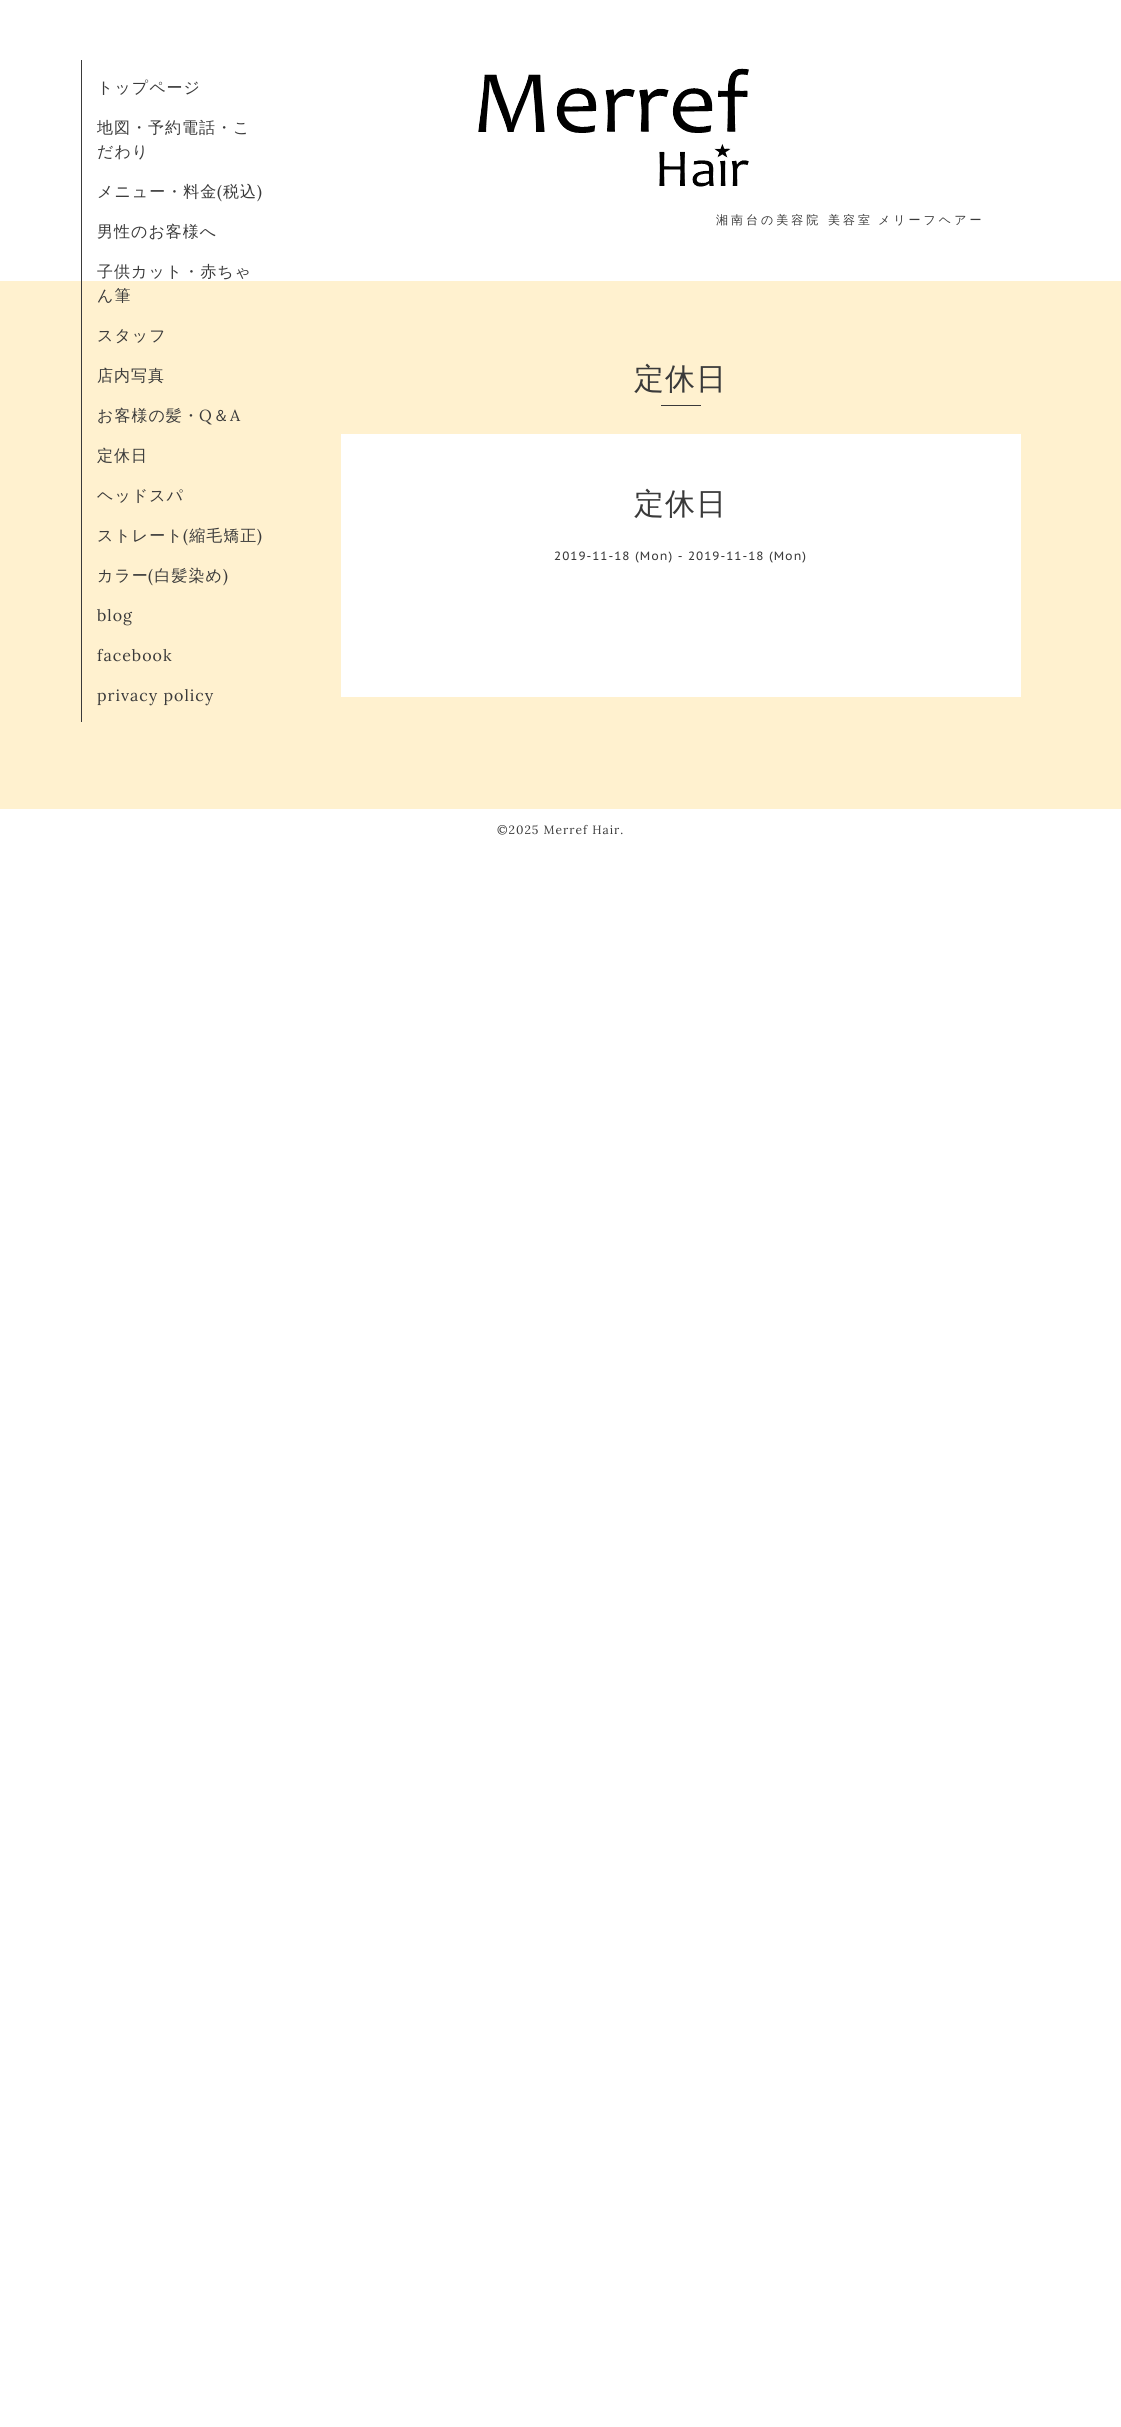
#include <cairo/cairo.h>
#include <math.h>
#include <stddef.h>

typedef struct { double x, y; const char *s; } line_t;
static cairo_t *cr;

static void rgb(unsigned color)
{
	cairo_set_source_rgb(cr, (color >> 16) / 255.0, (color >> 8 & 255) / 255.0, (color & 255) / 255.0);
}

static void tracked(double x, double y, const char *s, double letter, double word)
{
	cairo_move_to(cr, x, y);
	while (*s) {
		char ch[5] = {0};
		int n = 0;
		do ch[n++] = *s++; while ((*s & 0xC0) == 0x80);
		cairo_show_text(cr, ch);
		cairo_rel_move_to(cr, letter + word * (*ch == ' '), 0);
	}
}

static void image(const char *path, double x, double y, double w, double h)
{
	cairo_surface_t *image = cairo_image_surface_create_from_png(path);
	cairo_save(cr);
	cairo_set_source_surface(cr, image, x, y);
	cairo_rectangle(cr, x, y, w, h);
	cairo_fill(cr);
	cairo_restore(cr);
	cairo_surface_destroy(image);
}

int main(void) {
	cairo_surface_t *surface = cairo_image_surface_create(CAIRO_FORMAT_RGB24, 1121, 2427);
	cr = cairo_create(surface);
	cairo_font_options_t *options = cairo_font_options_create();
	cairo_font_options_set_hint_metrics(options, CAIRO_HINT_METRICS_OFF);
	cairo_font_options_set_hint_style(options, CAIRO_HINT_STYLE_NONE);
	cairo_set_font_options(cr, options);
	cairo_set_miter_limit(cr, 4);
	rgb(0xffffff);
	cairo_paint(cr);
	rgb(0xfff1cf);
	cairo_rectangle(cr, 0, 281, 1121, 528);
	cairo_fill(cr);
	rgb(0x3a3a3a);
	cairo_rectangle(cr, 81, 60, 1, 662);
	cairo_fill(cr);
	image("img/1.png", 478, 68, 271, 119);
	cairo_rectangle(cr, 661, 405, 40, 1);
	cairo_fill(cr);
	rgb(0xffffff);
	cairo_rectangle(cr, 341, 434, 680, 263);
	cairo_fill(cr);
	cairo_select_font_face(cr, "WenQuanYi Zen Hei Medium", CAIRO_FONT_SLANT_NORMAL, CAIRO_FONT_WEIGHT_NORMAL);
	cairo_set_font_size(cr, 16);
	rgb(0x3a3a3a);
	{
		static const line_t items[] = {
			{97, 93, "トップページ"},
			{97, 133, "地図・予約電話・こ"},
			{97, 157, "だわり"},
			{97, 197, "メニュー・料金 税込"},
		};
		for (size_t i = 0; i < sizeof items / sizeof *items; i++) {
			tracked(items[i].x, items[i].y, items[i].s, 1, 0);
		}
	}
	cairo_select_font_face(cr, "Lora", CAIRO_FONT_SLANT_NORMAL, CAIRO_FONT_WEIGHT_NORMAL);
	tracked(217, 197, "(", 1, 0);
	tracked(257, 197, ")", 1, 0);
	cairo_select_font_face(cr, "WenQuanYi Zen Hei Medium", CAIRO_FONT_SLANT_NORMAL, CAIRO_FONT_WEIGHT_NORMAL);
	{
		static const line_t items[] = {
			{97, 237, "男性のお客様へ"},
			{97, 277, "子供カット・赤ちゃ"},
			{97, 301, "ん筆"},
			{97, 341, "スタッフ"},
			{97, 381, "店内写真"},
			{97, 421, "お客様の髪・"},
		};
		for (size_t i = 0; i < sizeof items / sizeof *items; i++) {
			tracked(items[i].x, items[i].y, items[i].s, 1, 0);
		}
	}
	cairo_select_font_face(cr, "Lora", CAIRO_FONT_SLANT_NORMAL, CAIRO_FONT_WEIGHT_NORMAL);
	tracked(199, 421, "Q", 1, 0);
	cairo_select_font_face(cr, "WenQuanYi Zen Hei Medium", CAIRO_FONT_SLANT_NORMAL, CAIRO_FONT_WEIGHT_NORMAL);
	tracked(213, 421, "＆", 1, 0);
	cairo_select_font_face(cr, "Lora", CAIRO_FONT_SLANT_NORMAL, CAIRO_FONT_WEIGHT_NORMAL);
	tracked(230, 421, "A", 1, 0);
	cairo_select_font_face(cr, "WenQuanYi Zen Hei Medium", CAIRO_FONT_SLANT_NORMAL, CAIRO_FONT_WEIGHT_NORMAL);
	{
		static const line_t items[] = {
			{97, 461, "定休日"},
			{97, 501, "ヘッドスパ"},
			{97, 541, "ストレート 縮毛矯正"},
		};
		for (size_t i = 0; i < sizeof items / sizeof *items; i++) {
			tracked(items[i].x, items[i].y, items[i].s, 1, 0);
		}
	}
	cairo_select_font_face(cr, "Lora", CAIRO_FONT_SLANT_NORMAL, CAIRO_FONT_WEIGHT_NORMAL);
	tracked(183, 541, "(", 1, 0);
	tracked(257, 541, ")", 1, 0);
	cairo_select_font_face(cr, "WenQuanYi Zen Hei Medium", CAIRO_FONT_SLANT_NORMAL, CAIRO_FONT_WEIGHT_NORMAL);
	tracked(97, 581, "カラー 白髪染め", 1, 0);
	cairo_select_font_face(cr, "Lora", CAIRO_FONT_SLANT_NORMAL, CAIRO_FONT_WEIGHT_NORMAL);
	{
		static const line_t items[] = {
			{148, 581, "("},
			{223, 581, ")"},
			{97, 621, "blog"},
			{97, 661, "facebook"},
			{97, 701, "privacy policy"},
		};
		for (size_t i = 0; i < sizeof items / sizeof *items; i++) {
			tracked(items[i].x, items[i].y, items[i].s, 1, 0);
		}
	}
	cairo_select_font_face(cr, "WenQuanYi Zen Hei Medium", CAIRO_FONT_SLANT_NORMAL, CAIRO_FONT_WEIGHT_NORMAL);
	cairo_set_font_size(cr, 12);
	tracked(716, 224, "湘南台の美容院 美容室", 3, 0);
	tracked(878, 224, "メリーフヘアー", 3, 0);
	cairo_set_font_size(cr, 30);
	tracked(634, 389, "定休日", 1, 0);
	tracked(634, 514, "定休日", 1, 0);
	cairo_select_font_face(cr, "PT Sans Caption", CAIRO_FONT_SLANT_NORMAL, CAIRO_FONT_WEIGHT_NORMAL);
	cairo_set_font_size(cr, 12);
	tracked(554, 560, "2019-11-18 (Mon) - 2019-11-18 (Mon)", 1, 0);
	cairo_select_font_face(cr, "Lora", CAIRO_FONT_SLANT_NORMAL, CAIRO_FONT_WEIGHT_NORMAL);
	tracked(497, 834, "©2025 Merref Hair.", 1, 0);
	cairo_surface_write_to_png(surface, "page.png");
	cairo_font_options_destroy(options);
	cairo_destroy(cr);
	cairo_surface_destroy(surface);
	return 0;
}
